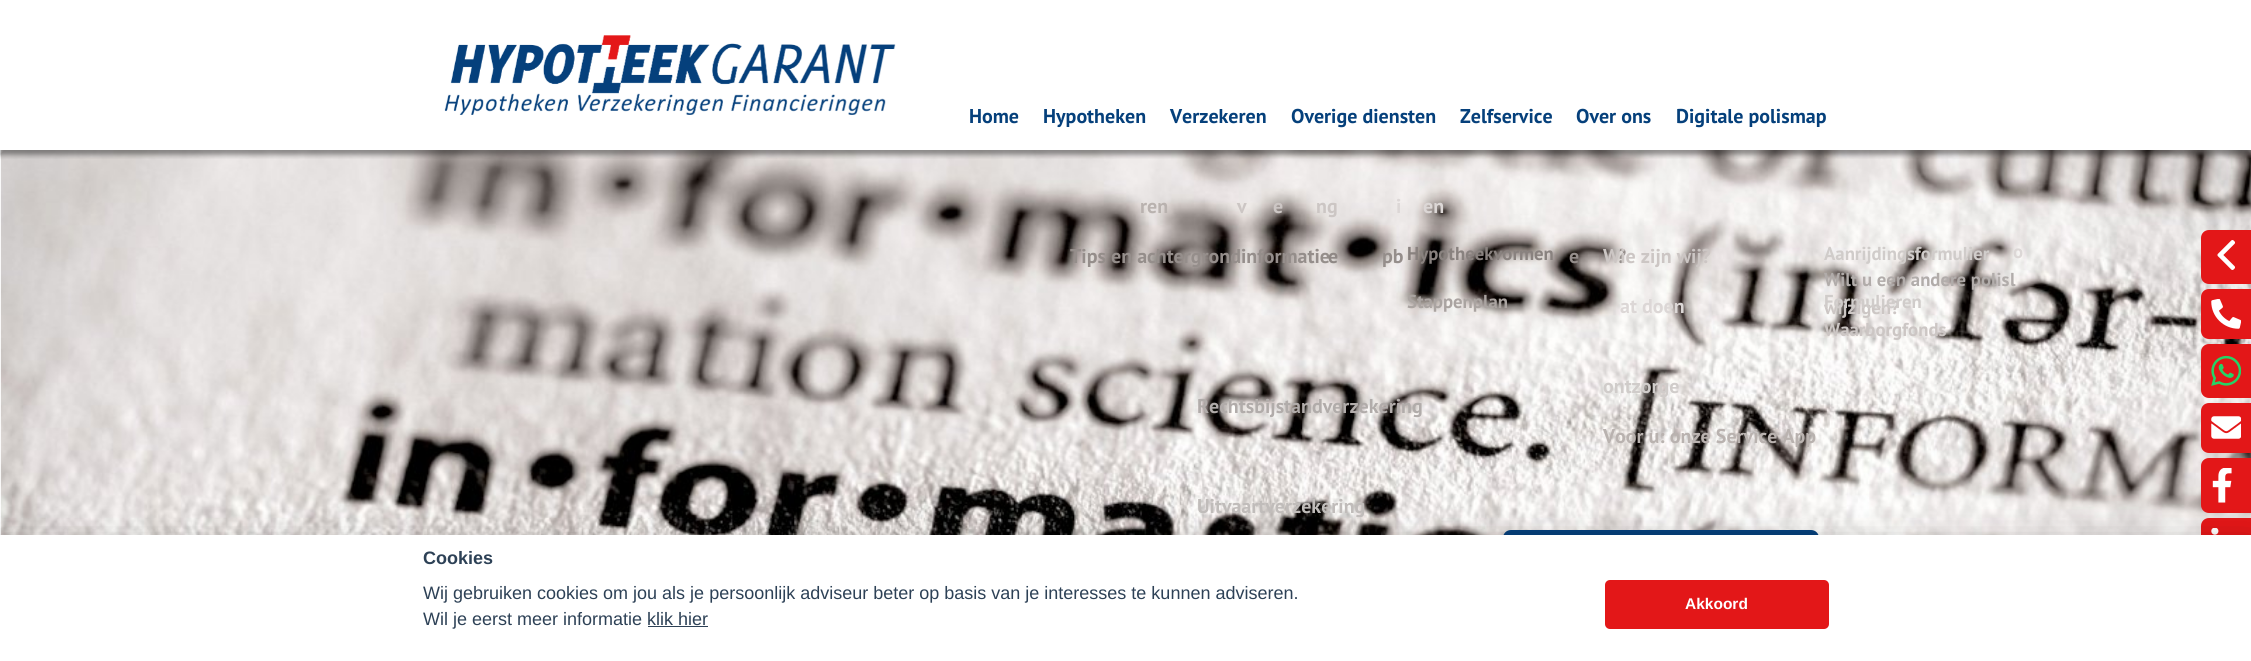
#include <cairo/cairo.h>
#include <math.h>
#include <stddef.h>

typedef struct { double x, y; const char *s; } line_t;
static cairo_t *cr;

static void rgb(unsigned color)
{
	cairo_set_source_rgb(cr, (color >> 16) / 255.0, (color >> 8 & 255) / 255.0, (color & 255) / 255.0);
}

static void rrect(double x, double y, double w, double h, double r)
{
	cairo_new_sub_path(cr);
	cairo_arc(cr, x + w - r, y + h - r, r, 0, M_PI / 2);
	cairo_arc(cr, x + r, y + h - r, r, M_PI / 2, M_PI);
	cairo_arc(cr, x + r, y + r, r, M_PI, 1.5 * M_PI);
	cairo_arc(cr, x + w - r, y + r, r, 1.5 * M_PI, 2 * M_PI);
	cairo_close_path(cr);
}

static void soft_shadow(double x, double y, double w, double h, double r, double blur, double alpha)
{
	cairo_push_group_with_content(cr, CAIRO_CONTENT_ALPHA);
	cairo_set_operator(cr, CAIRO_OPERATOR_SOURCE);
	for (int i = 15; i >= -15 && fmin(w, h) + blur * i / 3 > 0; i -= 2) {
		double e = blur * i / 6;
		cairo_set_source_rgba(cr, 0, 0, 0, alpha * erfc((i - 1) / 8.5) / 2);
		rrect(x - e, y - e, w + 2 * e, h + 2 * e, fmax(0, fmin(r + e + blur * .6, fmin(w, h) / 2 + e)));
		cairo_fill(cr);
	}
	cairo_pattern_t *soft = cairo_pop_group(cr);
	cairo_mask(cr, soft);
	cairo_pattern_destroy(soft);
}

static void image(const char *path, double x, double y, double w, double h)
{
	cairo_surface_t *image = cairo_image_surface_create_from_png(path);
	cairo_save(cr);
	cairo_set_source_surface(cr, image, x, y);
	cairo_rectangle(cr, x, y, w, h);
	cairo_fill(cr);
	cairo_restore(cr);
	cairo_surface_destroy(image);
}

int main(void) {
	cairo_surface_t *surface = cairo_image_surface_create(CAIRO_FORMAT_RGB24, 2251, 661);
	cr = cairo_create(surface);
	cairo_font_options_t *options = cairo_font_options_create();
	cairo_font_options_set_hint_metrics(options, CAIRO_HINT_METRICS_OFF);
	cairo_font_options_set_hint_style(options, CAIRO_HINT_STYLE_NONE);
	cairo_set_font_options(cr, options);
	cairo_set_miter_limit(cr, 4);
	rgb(0xffffff);
	cairo_paint(cr);
	image("img/2.png", 0, 150, 2251, 385);
	cairo_save(cr);
	cairo_rectangle(cr, 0, 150, 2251, 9);
	cairo_clip(cr);
	rgb(0x000000);
	soft_shadow(0, 5, 2251, 150, 0, 2.5, 0.4);
	cairo_restore(cr);
	image("img/1.png", 444, 35, 452, 80);
	rgb(0x000000);
	soft_shadow(1503, 533, 316, 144, 8, 2.5, 0.17);
	rgb(0x05407b);
	cairo_new_path(cr);
	cairo_move_to(cr, 1511, 530);
	cairo_line_to(cr, 1811, 530);
	cairo_curve_to(cr, 1815.5, 530, 1819, 533.5, 1819, 538);
	cairo_line_to(cr, 1819, 603);
	cairo_line_to(cr, 1503, 603);
	cairo_line_to(cr, 1503, 538);
	cairo_curve_to(cr, 1503, 533.5, 1506.5, 530, 1511, 530);
	cairo_close_path(cr);
	cairo_fill(cr);
	rgb(0xe31718);
	cairo_new_path(cr);
	cairo_move_to(cr, 2209, 230);
	cairo_line_to(cr, 2251, 230);
	cairo_line_to(cr, 2251, 284);
	cairo_line_to(cr, 2209, 284);
	cairo_curve_to(cr, 2204.5, 284, 2201, 280.5, 2201, 276);
	cairo_line_to(cr, 2201, 238);
	cairo_curve_to(cr, 2201, 233.5, 2204.5, 230, 2209, 230);
	cairo_close_path(cr);
	cairo_fill(cr);
	image("img/3.png", 2217, 240, 18, 30);
	cairo_new_path(cr);
	cairo_move_to(cr, 2209, 289);
	cairo_line_to(cr, 2251, 289);
	cairo_line_to(cr, 2251, 339);
	cairo_line_to(cr, 2209, 339);
	cairo_curve_to(cr, 2204.5, 339, 2201, 335.5, 2201, 331);
	cairo_line_to(cr, 2201, 297);
	cairo_curve_to(cr, 2201, 292.5, 2204.5, 289, 2209, 289);
	cairo_close_path(cr);
	cairo_fill(cr);
	image("img/4.png", 2211, 299, 30, 30);
	cairo_new_path(cr);
	cairo_move_to(cr, 2209, 344);
	cairo_line_to(cr, 2251, 344);
	cairo_line_to(cr, 2251, 398);
	cairo_line_to(cr, 2209, 398);
	cairo_curve_to(cr, 2204.5, 398, 2201, 394.5, 2201, 390);
	cairo_line_to(cr, 2201, 352);
	cairo_curve_to(cr, 2201, 347.5, 2204.5, 344, 2209, 344);
	cairo_close_path(cr);
	cairo_fill(cr);
	image("img/5.png", 2211, 355, 30, 31);
	cairo_new_path(cr);
	cairo_move_to(cr, 2209, 403);
	cairo_line_to(cr, 2251, 403);
	cairo_line_to(cr, 2251, 453);
	cairo_line_to(cr, 2209, 453);
	cairo_curve_to(cr, 2204.5, 453, 2201, 449.5, 2201, 445);
	cairo_line_to(cr, 2201, 411);
	cairo_curve_to(cr, 2201, 406.5, 2204.5, 403, 2209, 403);
	cairo_close_path(cr);
	cairo_fill(cr);
	image("img/6.png", 2211, 416, 30, 23);
	cairo_new_path(cr);
	cairo_move_to(cr, 2209, 458);
	cairo_line_to(cr, 2251, 458);
	cairo_line_to(cr, 2251, 513);
	cairo_line_to(cr, 2209, 513);
	cairo_curve_to(cr, 2204.5, 513, 2201, 509.5, 2201, 505);
	cairo_line_to(cr, 2201, 466);
	cairo_curve_to(cr, 2201, 461.5, 2204.5, 458, 2209, 458);
	cairo_close_path(cr);
	cairo_fill(cr);
	image("img/7.png", 2212, 468, 20, 35);
	cairo_new_path(cr);
	cairo_move_to(cr, 2209, 518);
	cairo_line_to(cr, 2251, 518);
	cairo_line_to(cr, 2251, 573);
	cairo_line_to(cr, 2209, 573);
	cairo_curve_to(cr, 2204.5, 573, 2201, 569.5, 2201, 565);
	cairo_line_to(cr, 2201, 526);
	cairo_curve_to(cr, 2201, 521.5, 2204.5, 518, 2209, 518);
	cairo_close_path(cr);
	cairo_fill(cr);
	image("img/8.png", 2211, 528, 8, 7);
	rgb(0x020203);
	soft_shadow(0, 546, 2251, 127, 0, 17, 0.28);
	rgb(0xffffff);
	cairo_rectangle(cr, 0, 535, 2251, 126);
	cairo_fill(cr);
	rgb(0x2d4156);
	cairo_rectangle(cr, 648, 626, 60, 1);
	cairo_fill(cr);
	rgb(0xe31718);
	rrect(1605, 580, 224, 49, 5);
	cairo_fill(cr);
	cairo_select_font_face(cr, "PT Sans", CAIRO_FONT_SLANT_NORMAL, CAIRO_FONT_WEIGHT_BOLD);
	cairo_set_font_size(cr, 20);
	rgb(0x05407b);
	cairo_move_to(cr, 1291, 123);
	cairo_show_text(cr, "Overige diensten");
	rgb(0xdcd7d6);
	cairo_move_to(cr, 1396, 213);
	cairo_show_text(cr, "i");
	cairo_move_to(cr, 1423, 213);
	cairo_show_text(cr, "en");
	rgb(0x958e8b);
	cairo_move_to(cr, 1382, 263);
	cairo_show_text(cr, "pb");
	rgb(0x05407b);
	cairo_move_to(cr, 1460, 123);
	cairo_show_text(cr, "Zelfservice");
	rgb(0x958e8b);
	cairo_move_to(cr, 1569, 263);
	cairo_show_text(cr, "e");
	cairo_move_to(cr, 1617, 263);
	cairo_show_text(cr, "?");
	cairo_set_font_size(cr, 18.75);
	rgb(0xd0ccca);
	cairo_move_to(cr, 1824, 260);
	cairo_show_text(cr, "Aanrijdingsformulier");
	rgb(0xccc6c4);
	cairo_move_to(cr, 1824, 336);
	cairo_show_text(cr, "Waarborgfonds");
	rgb(0xb1acaa);
	cairo_move_to(cr, 1824, 286);
	cairo_show_text(cr, "Wilt u een andere polis");
	rgb(0xccc6c4);
	cairo_move_to(cr, 1824, 314);
	cairo_show_text(cr, "wijzigen?");
	rgb(0xd0ccca);
	cairo_move_to(cr, 1824, 308);
	cairo_show_text(cr, "Formulieren");
	cairo_set_font_size(cr, 20);
	rgb(0x05407b);
	cairo_move_to(cr, 1576, 123);
	cairo_show_text(cr, "Over ons");
	rgb(0xccc6c4);
	cairo_move_to(cr, 1603, 263);
	cairo_show_text(cr, "Wie zijn wij?");
	cairo_set_font_size(cr, 18.75);
	rgb(0xdcd7d6);
	cairo_move_to(cr, 2013, 258);
	cairo_show_text(cr, "o");
	rgb(0xb1acaa);
	cairo_move_to(cr, 2010, 286);
	cairo_show_text(cr, "l");
	cairo_set_font_size(cr, 20);
	rgb(0xdcd7d6);
	cairo_move_to(cr, 1620, 313);
	cairo_show_text(cr, "at doen");
	rgb(0xd0ccca);
	cairo_move_to(cr, 1603, 393);
	cairo_show_text(cr, "ontzorge");
	rgb(0xb9b2af);
	cairo_move_to(cr, 1603, 443);
	cairo_show_text(cr, "Voor u: onze Service App");
	rgb(0x05407b);
	cairo_move_to(cr, 969, 123);
	cairo_show_text(cr, "Home");
	cairo_move_to(cr, 1043, 123);
	cairo_show_text(cr, "Hypotheken");
	rgb(0xb9b2af);
	cairo_move_to(cr, 1140, 213);
	cairo_show_text(cr, "ren");
	rgb(0x958e8b);
	cairo_move_to(cr, 1070, 263);
	cairo_show_text(cr, "Tips en achtergrondinformatie");
	cairo_set_font_size(cr, 18.75);
	rgb(0x89827f);
	cairo_move_to(cr, 1407, 260);
	cairo_show_text(cr, "Hypotheekvormen");
	rgb(0xaaa4a1);
	cairo_move_to(cr, 1407, 308);
	cairo_show_text(cr, "Stappenplan");
	cairo_set_font_size(cr, 20);
	rgb(0x05407b);
	cairo_move_to(cr, 1676, 123);
	cairo_show_text(cr, "Digitale polismap");
	cairo_move_to(cr, 1170, 123);
	cairo_show_text(cr, "Verzekeren");
	rgb(0xccc6c4);
	{
		static const line_t items[] = {
			{1237, 213, "v"},
			{1273, 213, "e"},
			{1316, 213, "ng"},
		};
		for (size_t i = 0; i < sizeof items / sizeof *items; i++) {
			cairo_move_to(cr, items[i].x, items[i].y);
			cairo_show_text(cr, items[i].s);
		}
	}
	rgb(0x8f8885);
	cairo_move_to(cr, 1328, 263);
	cairo_show_text(cr, "e");
	rgb(0xb1acaa);
	cairo_move_to(cr, 1197, 413);
	cairo_show_text(cr, "Rechtsbijstandverzekering");
	rgb(0xc0bcba);
	cairo_move_to(cr, 1197, 513);
	cairo_show_text(cr, "Uitvaartverzekering");
	cairo_select_font_face(cr, "Liberation Sans", CAIRO_FONT_SLANT_NORMAL, CAIRO_FONT_WEIGHT_BOLD);
	cairo_set_font_size(cr, 18);
	rgb(0x2d4156);
	cairo_move_to(cr, 423, 564);
	cairo_show_text(cr, "Cookies");
	cairo_select_font_face(cr, "Liberation Sans", CAIRO_FONT_SLANT_NORMAL, CAIRO_FONT_WEIGHT_NORMAL);
	cairo_move_to(cr, 423, 599);
	cairo_show_text(cr, "Wij gebruiken cookies om jou als je persoonlijk adviseur beter op basis van je interesses te kunnen adviseren.");
	cairo_move_to(cr, 423, 625);
	cairo_show_text(cr, "Wil je eerst meer informatie klik hier");
	cairo_select_font_face(cr, "Liberation Sans", CAIRO_FONT_SLANT_NORMAL, CAIRO_FONT_WEIGHT_BOLD);
	cairo_set_font_size(cr, 15.5);
	rgb(0xffffff);
	cairo_move_to(cr, 1685, 609);
	cairo_show_text(cr, "Akkoord");
	cairo_surface_write_to_png(surface, "page.png");
	cairo_font_options_destroy(options);
	cairo_destroy(cr);
	cairo_surface_destroy(surface);
	return 0;
}
